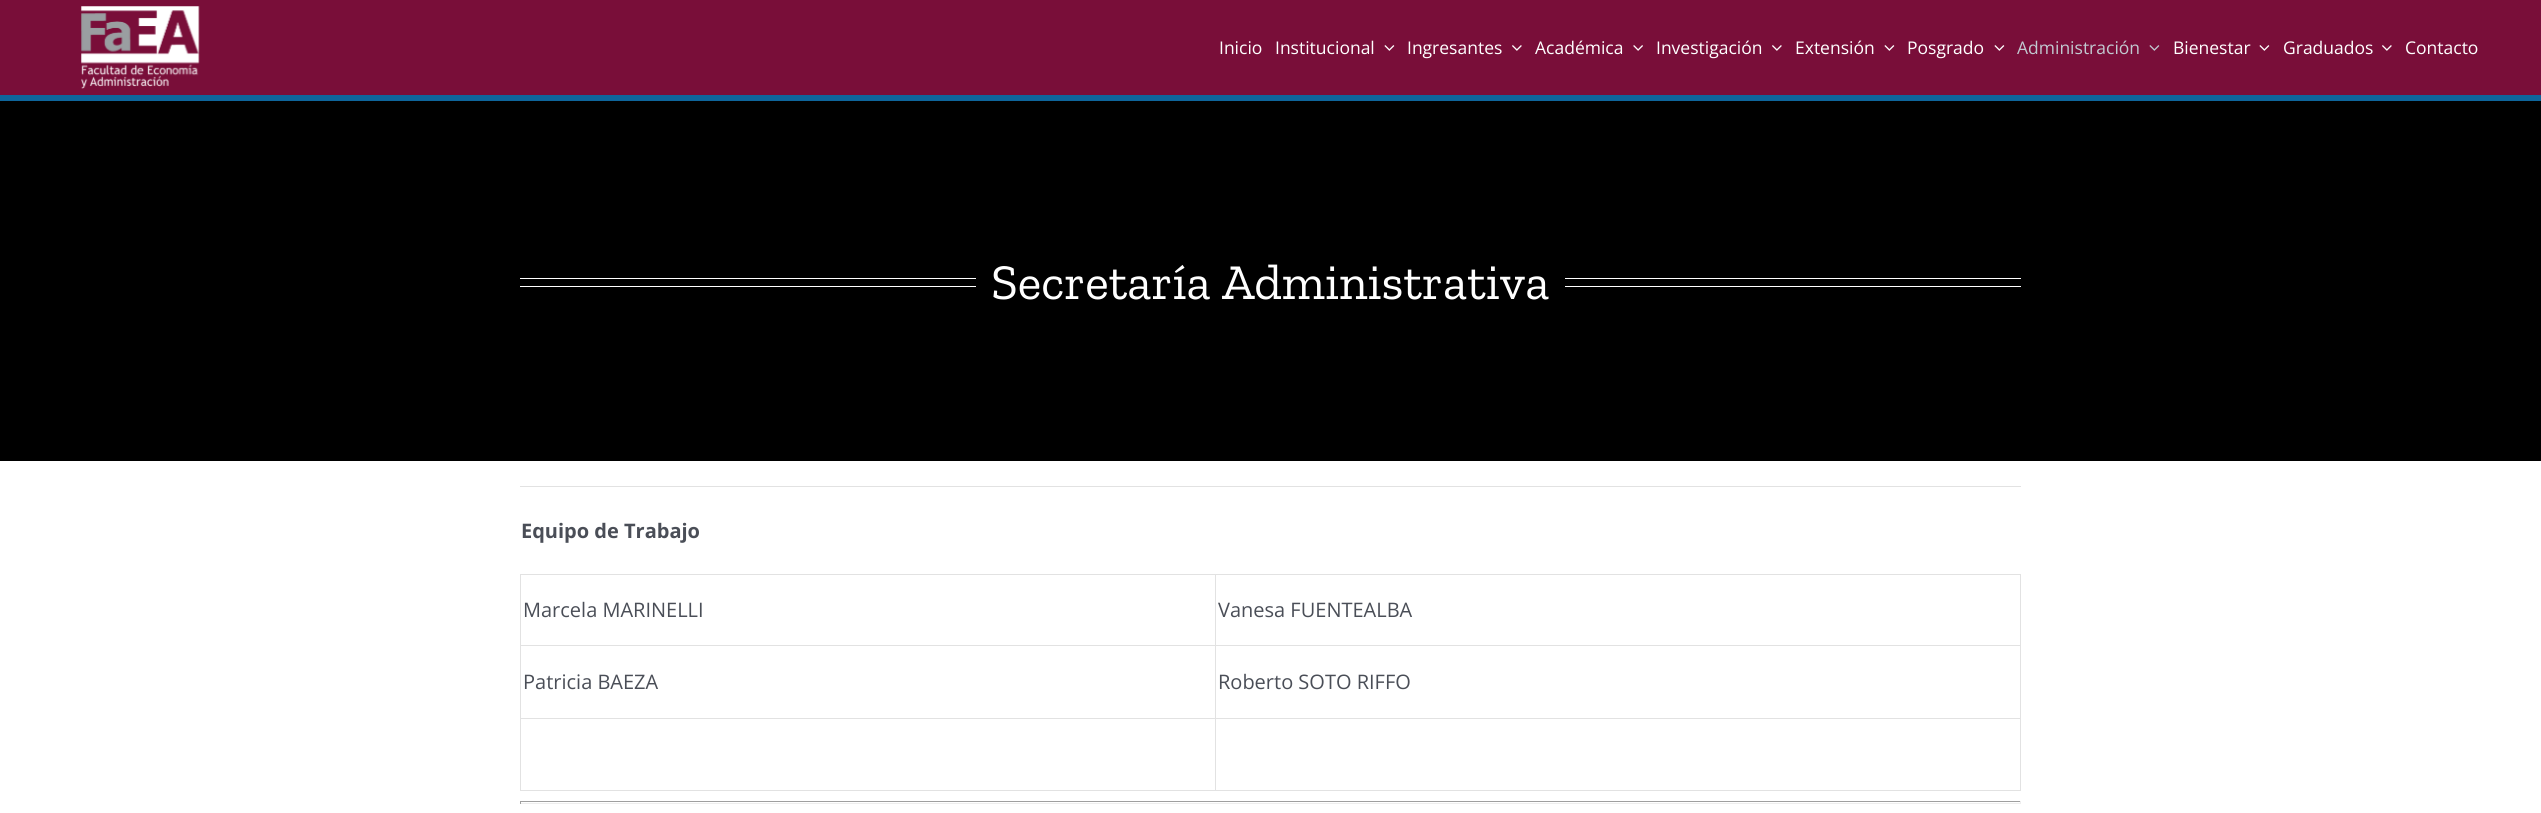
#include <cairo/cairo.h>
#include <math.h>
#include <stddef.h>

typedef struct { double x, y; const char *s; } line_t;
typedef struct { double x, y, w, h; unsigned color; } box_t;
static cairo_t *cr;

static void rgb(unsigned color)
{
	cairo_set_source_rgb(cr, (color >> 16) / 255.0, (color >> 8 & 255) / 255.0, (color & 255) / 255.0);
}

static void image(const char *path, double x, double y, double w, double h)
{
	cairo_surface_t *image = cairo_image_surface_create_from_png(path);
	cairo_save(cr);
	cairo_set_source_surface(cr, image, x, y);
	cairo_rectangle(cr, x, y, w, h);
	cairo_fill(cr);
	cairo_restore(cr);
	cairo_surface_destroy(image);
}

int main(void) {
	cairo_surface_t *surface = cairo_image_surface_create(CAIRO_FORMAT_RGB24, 2541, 813);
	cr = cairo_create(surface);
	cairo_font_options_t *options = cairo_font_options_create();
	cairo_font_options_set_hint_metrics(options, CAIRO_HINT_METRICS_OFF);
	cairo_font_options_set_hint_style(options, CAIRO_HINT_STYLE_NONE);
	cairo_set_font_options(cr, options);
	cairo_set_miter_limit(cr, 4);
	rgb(0xffffff);
	cairo_paint(cr);
	rgb(0x790e39);
	cairo_rectangle(cr, 0, 0, 2541, 95);
	cairo_fill(cr);
	rgb(0x0e659b);
	cairo_rectangle(cr, 0, 95, 2541, 6);
	cairo_fill(cr);
	image("img/1.png", 81, 6, 119, 83);
	image("img/2.png", 1384, 45, 11, 6);
	image("img/3.png", 1512, 45, 10, 6);
	image("img/4.png", 1633, 45, 10, 6);
	image("img/3.png", 1772, 45, 10, 6);
	image("img/2.png", 1884, 45, 11, 6);
	image("img/2.png", 1994, 45, 11, 6);
	image("img/5.png", 2149, 45, 11, 6);
	image("img/2.png", 2259, 45, 11, 6);
	image("img/3.png", 2382, 45, 10, 6);
	{
		static const box_t items[] = {
			{0, 101, 2541, 360, 0x000000},
			{520, 278, 456, 1, 0xffffff},
			{520, 286, 456, 1, 0xffffff},
			{1565, 278, 456, 1, 0xffffff},
			{1565, 286, 456, 1, 0xffffff},
			{520, 486, 1501, 1, 0xe2e2e2},
			{1215, 574, 806, 1, 0xe2e2e2},
			{1215, 645, 806, 1, 0xe2e2e2},
			{1215, 718, 806, 1, 0xe2e2e2},
			{2020, 718, 1, 73, 0xe2e2e2},
			{1215, 790, 806, 1, 0xe2e2e2},
			{1215, 718, 1, 73, 0xe2e2e2},
			{520, 718, 696, 1, 0xe2e2e2},
			{1215, 645, 1, 74, 0xe2e2e2},
			{520, 645, 696, 1, 0xe2e2e2},
			{1215, 574, 1, 72, 0xe2e2e2},
			{520, 574, 696, 1, 0xe2e2e2},
			{520, 790, 696, 1, 0xe2e2e2},
			{520, 718, 1, 73, 0xe2e2e2},
			{520, 645, 1, 74, 0xe2e2e2},
			{520, 574, 1, 72, 0xe2e2e2},
			{2020, 645, 1, 74, 0xe2e2e2},
			{2020, 574, 1, 72, 0xe2e2e2},
			{520, 801, 1501, 1, 0x9f9f9f},
			{2020, 801, 1, 3, 0xeeeeee},
			{520, 803, 1501, 1, 0xeeeeee},
			{520, 801, 1, 3, 0x9f9f9f},
		};
		for (size_t i = 0; i < sizeof items / sizeof *items; i++) {
			rgb(items[i].color);
			cairo_rectangle(cr, items[i].x, items[i].y, items[i].w, items[i].h);
			cairo_fill(cr);
		}
	}
	cairo_select_font_face(cr, "Open Sans", CAIRO_FONT_SLANT_NORMAL, CAIRO_FONT_WEIGHT_NORMAL);
	cairo_set_font_size(cr, 17.5);
	rgb(0xffffff);
	{
		static const line_t items[] = {
			{1219, 54, "Inicio"},
			{1275, 54, "Institucional"},
			{1407, 54, "Ingresantes"},
			{1535, 54, "Académica"},
			{1656, 54, "Investigación"},
			{1795, 54, "Extensión"},
			{1907, 54, "Posgrado"},
		};
		for (size_t i = 0; i < sizeof items / sizeof *items; i++) {
			cairo_move_to(cr, items[i].x, items[i].y);
			cairo_show_text(cr, items[i].s);
		}
	}
	rgb(0xc1c9d0);
	cairo_move_to(cr, 2017, 54);
	cairo_show_text(cr, "Administración");
	rgb(0xffffff);
	{
		static const line_t items[] = {
			{2173, 54, "Bienestar"},
			{2283, 54, "Graduados"},
			{2405, 54, "Contacto"},
		};
		for (size_t i = 0; i < sizeof items / sizeof *items; i++) {
			cairo_move_to(cr, items[i].x, items[i].y);
			cairo_show_text(cr, items[i].s);
		}
	}
	cairo_select_font_face(cr, "Zilla Slab", CAIRO_FONT_SLANT_NORMAL, CAIRO_FONT_WEIGHT_NORMAL);
	cairo_set_font_size(cr, 50);
	cairo_move_to(cr, 991, 299);
	cairo_show_text(cr, "Secretaría Administrativa");
	cairo_select_font_face(cr, "Open Sans", CAIRO_FONT_SLANT_NORMAL, CAIRO_FONT_WEIGHT_BOLD);
	cairo_set_font_size(cr, 20);
	rgb(0x4a4e57);
	cairo_move_to(cr, 521, 538);
	cairo_show_text(cr, "Equipo de Trabajo");
	cairo_select_font_face(cr, "Open Sans", CAIRO_FONT_SLANT_NORMAL, CAIRO_FONT_WEIGHT_NORMAL);
	{
		static const line_t items[] = {
			{523, 617, "Marcela MARINELLI"},
			{1218, 617, "Vanesa FUENTEALBA"},
			{523, 689, "Patricia BAEZA"},
			{1218, 689, "Roberto SOTO RIFFO"},
		};
		for (size_t i = 0; i < sizeof items / sizeof *items; i++) {
			cairo_move_to(cr, items[i].x, items[i].y);
			cairo_show_text(cr, items[i].s);
		}
	}
	cairo_surface_write_to_png(surface, "page.png");
	cairo_font_options_destroy(options);
	cairo_destroy(cr);
	cairo_surface_destroy(surface);
	return 0;
}
